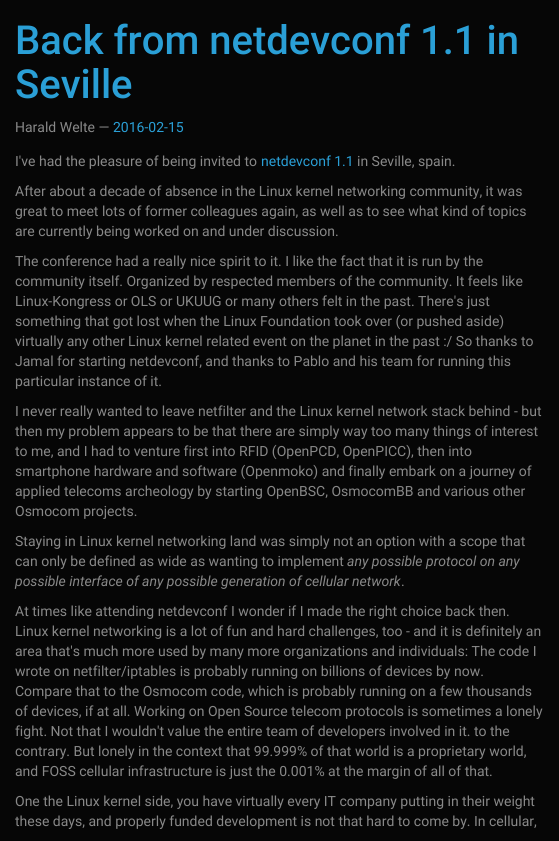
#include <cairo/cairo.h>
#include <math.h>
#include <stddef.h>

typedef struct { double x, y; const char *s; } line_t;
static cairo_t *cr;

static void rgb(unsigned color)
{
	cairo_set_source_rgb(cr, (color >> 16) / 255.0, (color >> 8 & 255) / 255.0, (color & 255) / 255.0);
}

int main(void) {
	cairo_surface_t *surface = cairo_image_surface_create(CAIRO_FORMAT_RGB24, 559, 841);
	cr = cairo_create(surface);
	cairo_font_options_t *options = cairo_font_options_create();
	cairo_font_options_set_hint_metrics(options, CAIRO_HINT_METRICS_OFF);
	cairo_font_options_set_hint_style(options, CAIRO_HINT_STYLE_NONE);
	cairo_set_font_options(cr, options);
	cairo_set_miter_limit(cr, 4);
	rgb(0x060606);
	cairo_paint(cr);
	cairo_select_font_face(cr, "Roboto Medium", CAIRO_FONT_SLANT_NORMAL, CAIRO_FONT_WEIGHT_NORMAL);
	cairo_set_font_size(cr, 40);
	rgb(0x2a9fd6);
	cairo_move_to(cr, 15, 54);
	cairo_show_text(cr, "Back from netdevconf 1.1 in");
	cairo_move_to(cr, 15, 98);
	cairo_show_text(cr, "Seville");
	cairo_select_font_face(cr, "Roboto", CAIRO_FONT_SLANT_NORMAL, CAIRO_FONT_WEIGHT_NORMAL);
	cairo_set_font_size(cr, 14);
	rgb(0x888888);
	cairo_move_to(cr, 15, 132);
	cairo_show_text(cr, "Harald Welte —");
	rgb(0x2a9fd6);
	cairo_move_to(cr, 113, 132);
	cairo_show_text(cr, "2016-02-15");
	rgb(0x888888);
	cairo_move_to(cr, 15, 166);
	cairo_show_text(cr, "I've had the pleasure of being invited to");
	rgb(0x2a9fd6);
	cairo_move_to(cr, 261, 166);
	cairo_show_text(cr, "netdevconf 1.1");
	rgb(0x888888);
	{
		static const line_t items[] = {
			{357, 166, "in Seville, spain."},
			{15, 196, "After about a decade of absence in the Linux kernel networking community, it was"},
			{15, 216, "great to meet lots of former colleagues again, as well as to see what kind of topics"},
			{15, 236, "are currently being worked on and under discussion."},
			{15, 266, "The conference had a really nice spirit to it. I like the fact that it is run by the"},
			{15, 286, "community itself. Organized by respected members of the community. It feels like"},
			{15, 306, "Linux-Kongress or OLS or UKUUG or many others felt in the past. There's just"},
			{15, 326, "something that got lost when the Linux Foundation took over (or pushed aside)"},
			{15, 346, "virtually any other Linux kernel related event on the planet in the past :/ So thanks to"},
			{15, 366, "Jamal for starting netdevconf, and thanks to Pablo and his team for running this"},
			{15, 386, "particular instance of it."},
			{15, 416, "I never really wanted to leave netfilter and the Linux kernel network stack behind - but"},
			{15, 436, "then my problem appears to be that there are simply way too many things of interest"},
			{15, 456, "to me, and I had to venture first into RFID (OpenPCD, OpenPICC), then into"},
			{15, 476, "smartphone hardware and software (Openmoko) and finally embark on a journey of"},
			{15, 496, "applied telecoms archeology by starting OpenBSC, OsmocomBB and various other"},
			{15, 516, "Osmocom projects."},
			{15, 546, "Staying in Linux kernel networking land was simply not an option with a scope that"},
			{15, 566, "can only be defined as wide as wanting to implement"},
		};
		for (size_t i = 0; i < sizeof items / sizeof *items; i++) {
			cairo_move_to(cr, items[i].x, items[i].y);
			cairo_show_text(cr, items[i].s);
		}
	}
	cairo_select_font_face(cr, "Roboto", CAIRO_FONT_SLANT_ITALIC, CAIRO_FONT_WEIGHT_NORMAL);
	cairo_move_to(cr, 347, 566);
	cairo_show_text(cr, "any possible protocol on any");
	cairo_move_to(cr, 15, 586);
	cairo_show_text(cr, "possible interface of any possible generation of cellular network");
	cairo_select_font_face(cr, "Roboto", CAIRO_FONT_SLANT_NORMAL, CAIRO_FONT_WEIGHT_NORMAL);
	{
		static const line_t items[] = {
			{401, 586, "."},
			{15, 616, "At times like attending netdevconf I wonder if I made the right choice back then."},
			{15, 636, "Linux kernel networking is a lot of fun and hard challenges, too - and it is definitely an"},
			{15, 656, "area that's much more used by many more organizations and individuals: The code I"},
			{15, 676, "wrote on netfilter/iptables is probably running on billions of devices by now."},
			{15, 696, "Compare that to the Osmocom code, which is probably running on a few thousands"},
			{15, 716, "of devices, if at all. Working on Open Source telecom protocols is sometimes a lonely"},
			{15, 736, "fight. Not that I wouldn't value the entire team of developers involved in it. to the"},
			{15, 756, "contrary. But lonely in the context that 99.999% of that world is a proprietary world,"},
			{15, 776, "and FOSS cellular infrastructure is just the 0.001% at the margin of all of that."},
			{15, 806, "One the Linux kernel side, you have virtually every IT company putting in their weight"},
			{15, 826, "these days, and properly funded development is not that hard to come by. In cellular,"},
		};
		for (size_t i = 0; i < sizeof items / sizeof *items; i++) {
			cairo_move_to(cr, items[i].x, items[i].y);
			cairo_show_text(cr, items[i].s);
		}
	}
	cairo_surface_write_to_png(surface, "page.png");
	cairo_font_options_destroy(options);
	cairo_destroy(cr);
	cairo_surface_destroy(surface);
	return 0;
}
